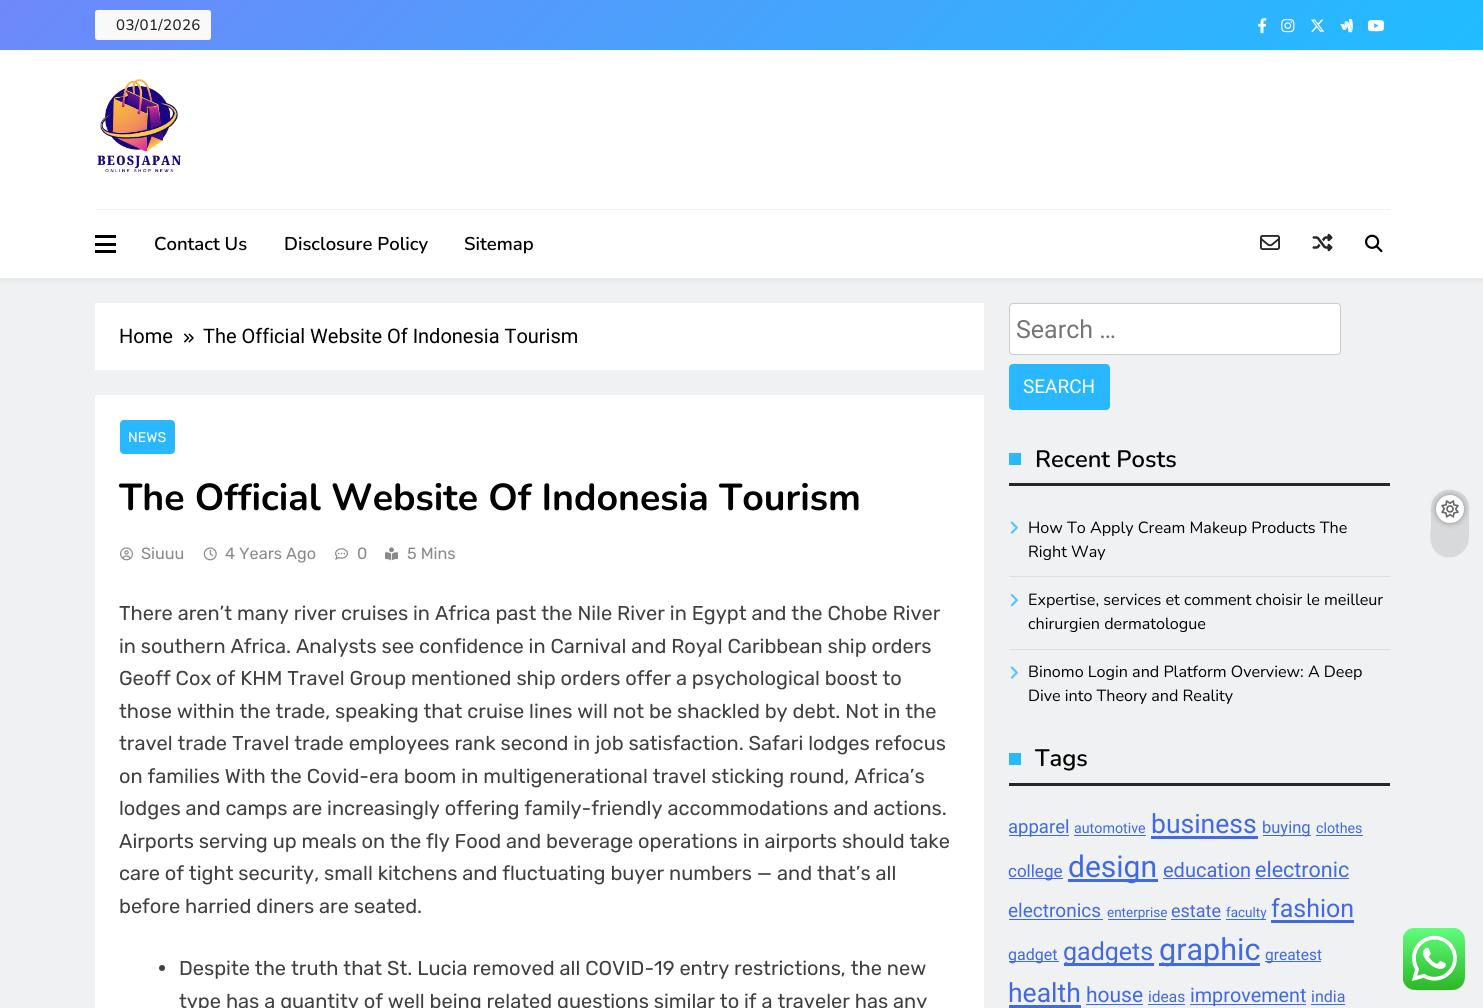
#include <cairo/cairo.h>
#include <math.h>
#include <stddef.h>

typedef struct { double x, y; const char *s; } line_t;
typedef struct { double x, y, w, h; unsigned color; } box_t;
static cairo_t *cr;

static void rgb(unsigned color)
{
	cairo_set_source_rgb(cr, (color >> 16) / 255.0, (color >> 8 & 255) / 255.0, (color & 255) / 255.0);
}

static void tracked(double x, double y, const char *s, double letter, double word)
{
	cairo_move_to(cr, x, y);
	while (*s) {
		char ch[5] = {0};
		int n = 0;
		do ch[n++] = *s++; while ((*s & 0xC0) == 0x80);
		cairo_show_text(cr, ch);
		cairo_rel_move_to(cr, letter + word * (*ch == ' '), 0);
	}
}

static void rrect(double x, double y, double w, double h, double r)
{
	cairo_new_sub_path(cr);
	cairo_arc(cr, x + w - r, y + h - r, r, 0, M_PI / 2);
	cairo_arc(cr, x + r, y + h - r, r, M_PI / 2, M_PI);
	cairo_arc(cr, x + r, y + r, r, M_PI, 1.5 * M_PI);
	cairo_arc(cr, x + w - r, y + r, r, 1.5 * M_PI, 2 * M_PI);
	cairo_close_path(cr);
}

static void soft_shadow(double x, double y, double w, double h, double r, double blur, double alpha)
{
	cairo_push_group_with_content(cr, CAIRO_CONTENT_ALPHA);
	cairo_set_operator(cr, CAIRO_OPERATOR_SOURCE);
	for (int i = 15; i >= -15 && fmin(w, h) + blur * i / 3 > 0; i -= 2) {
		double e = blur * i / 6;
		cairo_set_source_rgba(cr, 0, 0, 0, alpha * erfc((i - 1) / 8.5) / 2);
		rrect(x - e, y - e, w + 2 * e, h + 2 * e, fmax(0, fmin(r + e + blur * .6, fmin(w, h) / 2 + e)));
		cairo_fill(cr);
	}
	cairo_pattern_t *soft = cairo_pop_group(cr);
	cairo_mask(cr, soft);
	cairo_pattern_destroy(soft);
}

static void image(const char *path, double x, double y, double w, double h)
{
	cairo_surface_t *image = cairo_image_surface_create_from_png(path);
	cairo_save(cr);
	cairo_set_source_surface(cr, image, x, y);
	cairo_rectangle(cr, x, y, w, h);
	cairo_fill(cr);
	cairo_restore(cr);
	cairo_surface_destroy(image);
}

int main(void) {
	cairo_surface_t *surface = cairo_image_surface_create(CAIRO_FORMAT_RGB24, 1483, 1008);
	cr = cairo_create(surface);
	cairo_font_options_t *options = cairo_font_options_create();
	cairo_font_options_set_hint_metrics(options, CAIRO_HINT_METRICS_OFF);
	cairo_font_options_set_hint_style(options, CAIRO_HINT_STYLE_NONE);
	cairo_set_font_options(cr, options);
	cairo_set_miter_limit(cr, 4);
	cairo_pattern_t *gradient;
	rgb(0xf0f1f2);
	cairo_paint(cr);
	gradient = cairo_pattern_create_linear(358, -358, 1125, 408);
	cairo_pattern_add_color_stop_rgba(gradient, 0, 0.435, 0.533, 0.98, 1);
	cairo_pattern_add_color_stop_rgba(gradient, 1, 0.125, 0.741, 1, 1);
	cairo_set_source(cr, gradient);
	cairo_pattern_destroy(gradient);
	cairo_rectangle(cr, 0, 0, 1483, 50);
	cairo_fill(cr);
	rgb(0xf9f9f9);
	rrect(95, 10, 116, 30, 2.5);
	cairo_fill(cr);
	image("img/1.png", 1258, 18, 9, 16);
	image("img/2.png", 1281, 19, 14, 14);
	image("img/3.png", 1310, 19, 15, 13);
	image("img/4.png", 1340, 19, 13, 14);
	image("img/5.png", 1367, 20, 17, 12);
	rgb(0x000000);
	soft_shadow(0, 54, 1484, 227, 0, 2.5, 0.05);
	rgb(0xffffff);
	cairo_rectangle(cr, 0, 50, 1483, 228);
	cairo_fill(cr);
	image("img/6.png", 97, 79, 84, 93);
	{
		static const box_t items[] = {
			{95, 209, 1295, 1, 0xf0f0f0},
			{95, 235, 21, 3, 0x000000},
			{95, 243, 21, 3, 0x000000},
			{95, 250, 21, 3, 0x000000},
		};
		for (size_t i = 0; i < sizeof items / sizeof *items; i++) {
			rgb(items[i].color);
			cairo_rectangle(cr, items[i].x, items[i].y, items[i].w, items[i].h);
			cairo_fill(cr);
		}
	}
	image("img/7.png", 1260, 235, 20, 15);
	image("img/8.png", 1312, 233, 21, 19);
	image("img/9.png", 1365, 234, 18, 19);
	rgb(0xd8d9da);
	cairo_new_path(cr);
	cairo_move_to(cr, 1469, 508);
	cairo_line_to(cr, 1469, 538);
	cairo_curve_to(cr, 1468, 559, 1440, 565, 1432, 546);
	cairo_curve_to(cr, 1429, 539, 1431, 530, 1431, 523);
	cairo_line_to(cr, 1431, 508);
	cairo_curve_to(cr, 1432, 483, 1469, 484, 1469, 508);
	cairo_close_path(cr);
	cairo_fill(cr);
	rgb(0x000000);
	soft_shadow(1436, 495, 28, 28, 14, 3, 0.35);
	rgb(0xffffff);
	cairo_arc(cr, 1450, 509, 14, 0, 2 * M_PI);
	cairo_fill(cr);
	image("img/10.png", 1441, 500, 18, 18);
	cairo_rectangle(cr, 95, 303, 889, 67);
	cairo_fill(cr);
	image("img/11.png", 184, 333, 10, 10);
	cairo_rectangle(cr, 95, 395, 889, 613);
	cairo_fill(cr);
	rgb(0x29b8ff);
	rrect(120, 420, 55, 34, 4);
	cairo_fill(cr);
	image("img/12.png", 120, 547, 13, 14);
	image("img/13.png", 203, 547, 14, 14);
	image("img/14.png", 335, 548, 13, 12);
	image("img/15.png", 385, 547, 13, 14);
	rgb(0x404040);
	cairo_arc(cr, 162, 968, 3, 0, 2 * M_PI);
	cairo_fill(cr);
	rgb(0xffffff);
	rrect(1009.5, 303.5, 331, 51, 3.5);
	cairo_fill_preserve(cr);
	rgb(0xcccccc);
	cairo_set_line_width(cr, 1);
	cairo_stroke(cr);
	rgb(0x29b8ff);
	rrect(1009, 364, 101, 46, 4);
	cairo_fill(cr);
	{
		static const box_t items[] = {
			{1009, 483, 381, 3, 0x27272a},
			{1009, 453, 12, 12, 0x29b8ff},
			{1009, 576, 381, 1, 0xdedee0},
		};
		for (size_t i = 0; i < sizeof items / sizeof *items; i++) {
			rgb(items[i].color);
			cairo_rectangle(cr, items[i].x, items[i].y, items[i].w, items[i].h);
			cairo_fill(cr);
		}
	}
	image("img/16.png", 1010, 521, 8, 13);
	cairo_rectangle(cr, 1009, 649, 381, 1);
	cairo_fill(cr);
	image("img/17.png", 1010, 594, 8, 13);
	image("img/16.png", 1010, 666, 8, 13);
	{
		static const box_t items[] = {
			{1009, 783, 381, 3, 0x27272a},
			{1009, 753, 12, 12, 0x29b8ff},
			{1009, 835, 60, 1, 0x4169e1},
			{1074, 835, 72, 1, 0x4169e1},
			{1151, 836, 107, 3, 0x4169e1},
			{1263, 835, 48, 1, 0x4169e1},
			{1316, 835, 47, 1, 0x4169e1},
			{1009, 878, 54, 1, 0x4169e1},
			{1068, 879, 90, 3, 0x4169e1},
			{1163, 878, 87, 1, 0x4169e1},
			{1255, 878, 94, 1, 0x4169e1},
			{1009, 919, 94, 1, 0x4169e1},
			{1108, 919, 58, 1, 0x4169e1},
			{1171, 919, 50, 1, 0x4169e1},
			{1226, 919, 40, 1, 0x4169e1},
			{1271, 920, 83, 3, 0x4169e1},
			{1009, 961, 50, 1, 0x4169e1},
			{1064, 963, 90, 3, 0x4169e1},
			{1159, 963, 101, 3, 0x4169e1},
			{1265, 961, 56, 1, 0x4169e1},
			{1009, 1005, 72, 3, 0x4169e1},
			{1086, 1004, 57, 1, 0x4169e1},
			{1148, 1004, 37, 1, 0x4169e1},
			{1190, 1004, 116, 1, 0x4169e1},
			{1311, 1004, 34, 1, 0x4169e1},
		};
		for (size_t i = 0; i < sizeof items / sizeof *items; i++) {
			rgb(items[i].color);
			cairo_rectangle(cr, items[i].x, items[i].y, items[i].w, items[i].h);
			cairo_fill(cr);
		}
	}
	image("img/18.png", 1403, 928, 62, 62);
	cairo_select_font_face(cr, "Nunito Medium", CAIRO_FONT_SLANT_NORMAL, CAIRO_FONT_WEIGHT_NORMAL);
	cairo_set_font_size(cr, 15);
	rgb(0x222222);
	tracked(116, 30, "03/01/2026", 0.4, 0);
	cairo_select_font_face(cr, "Nunito SemiBold", CAIRO_FONT_SLANT_NORMAL, CAIRO_FONT_WEIGHT_NORMAL);
	cairo_set_font_size(cr, 18.5);
	rgb(0x000000);
	{
		static const line_t items[] = {
			{154, 250, "Contact Us"},
			{284, 250, "Disclosure Policy"},
			{464, 250, "Sitemap"},
		};
		for (size_t i = 0; i < sizeof items / sizeof *items; i++) {
			cairo_move_to(cr, items[i].x, items[i].y);
			cairo_show_text(cr, items[i].s);
		}
	}
	cairo_select_font_face(cr, "Roboto", CAIRO_FONT_SLANT_NORMAL, CAIRO_FONT_WEIGHT_NORMAL);
	cairo_set_font_size(cr, 20);
	cairo_move_to(cr, 119, 343);
	cairo_show_text(cr, "Home");
	cairo_move_to(cr, 203, 343);
	cairo_show_text(cr, "The Official Website Of Indonesia Tourism");
	cairo_select_font_face(cr, "Rubik", CAIRO_FONT_SLANT_NORMAL, CAIRO_FONT_WEIGHT_NORMAL);
	cairo_set_font_size(cr, 14);
	rgb(0xffffff);
	cairo_move_to(cr, 128, 442);
	cairo_show_text(cr, "NEWS");
	cairo_select_font_face(cr, "Nunito", CAIRO_FONT_SLANT_NORMAL, CAIRO_FONT_WEIGHT_BOLD);
	cairo_set_font_size(cr, 37.5);
	rgb(0x000000);
	cairo_move_to(cr, 119, 510);
	cairo_show_text(cr, "The Official Website Of Indonesia Tourism");
	cairo_select_font_face(cr, "Rubik", CAIRO_FONT_SLANT_NORMAL, CAIRO_FONT_WEIGHT_NORMAL);
	cairo_set_font_size(cr, 16.25);
	rgb(0x8a8a8c);
	{
		static const line_t items[] = {
			{141, 559, "Siuuu"},
			{225, 559, "4 Years Ago"},
			{357, 559, "0"},
			{407, 559, "5 Mins"},
		};
		for (size_t i = 0; i < sizeof items / sizeof *items; i++) {
			cairo_move_to(cr, items[i].x, items[i].y);
			cairo_show_text(cr, items[i].s);
		}
	}
	cairo_set_font_size(cr, 20);
	rgb(0x404040);
	{
		static const line_t items[] = {
			{119, 620, "There aren’t many river cruises in Africa past the Nile River in Egypt and the Chobe River"},
			{119, 653, "in southern Africa. Analysts see confidence in Carnival and Royal Caribbean ship orders"},
			{119, 685, "Geoff Cox of KHM Travel Group mentioned ship orders offer a psychological boost to"},
			{119, 718, "those within the trade, speaking that cruise lines will not be shackled by debt. Not in the"},
			{119, 750, "travel trade Travel trade employees rank second in job satisfaction. Safari lodges refocus"},
			{119, 783, "on families With the Covid-era boom in multigenerational travel sticking round, Africa’s"},
			{119, 815, "lodges and camps are increasingly offering family-friendly accommodations and actions."},
			{119, 848, "Airports serving up meals on the fly Food and beverage operations in airports should take"},
			{119, 880, "care of tight security, small kitchens and fluctuating buyer numbers — and that’s all"},
			{119, 913, "before harried diners are seated."},
			{179, 975, "Despite the truth that St. Lucia removed all COVID-19 entry restrictions, the new"},
			{179, 1008, "type has a quantity of well being related questions similar to if a traveler has any"},
		};
		for (size_t i = 0; i < sizeof items / sizeof *items; i++) {
			cairo_move_to(cr, items[i].x, items[i].y);
			cairo_show_text(cr, items[i].s);
		}
	}
	cairo_select_font_face(cr, "Roboto", CAIRO_FONT_SLANT_NORMAL, CAIRO_FONT_WEIGHT_NORMAL);
	cairo_set_font_size(cr, 25);
	rgb(0x757575);
	cairo_move_to(cr, 1016, 338);
	cairo_show_text(cr, "Search …");
	cairo_set_font_size(cr, 19);
	rgb(0xffffff);
	cairo_move_to(cr, 1023, 393);
	cairo_show_text(cr, "SEARCH");
	cairo_select_font_face(cr, "Nunito SemiBold", CAIRO_FONT_SLANT_NORMAL, CAIRO_FONT_WEIGHT_NORMAL);
	cairo_set_font_size(cr, 23.75);
	rgb(0x000000);
	cairo_move_to(cr, 1035, 467);
	cairo_show_text(cr, "Recent Posts");
	cairo_select_font_face(cr, "Nunito", CAIRO_FONT_SLANT_NORMAL, CAIRO_FONT_WEIGHT_NORMAL);
	cairo_set_font_size(cr, 16.15);
	{
		static const line_t items[] = {
			{1028, 533, "How To Apply Cream Makeup Products The"},
			{1028, 557, "Right Way"},
			{1028, 605, "Expertise, services et comment choisir le meilleur"},
			{1028, 629, "chirurgien dermatologue"},
			{1028, 677, "Binomo Login and Platform Overview: A Deep"},
			{1028, 701, "Dive into Theory and Reality"},
		};
		for (size_t i = 0; i < sizeof items / sizeof *items; i++) {
			cairo_move_to(cr, items[i].x, items[i].y);
			cairo_show_text(cr, items[i].s);
		}
	}
	cairo_select_font_face(cr, "Nunito SemiBold", CAIRO_FONT_SLANT_NORMAL, CAIRO_FONT_WEIGHT_NORMAL);
	cairo_set_font_size(cr, 23.75);
	cairo_move_to(cr, 1035, 766);
	cairo_show_text(cr, "Tags");
	cairo_select_font_face(cr, "Roboto", CAIRO_FONT_SLANT_NORMAL, CAIRO_FONT_WEIGHT_NORMAL);
	cairo_set_font_size(cr, 18.5);
	rgb(0x4169e1);
	cairo_move_to(cr, 1008, 833);
	cairo_show_text(cr, "apparel");
	cairo_set_font_size(cr, 14.25);
	cairo_move_to(cr, 1074, 833);
	cairo_show_text(cr, "automotive");
	cairo_set_font_size(cr, 26.5);
	cairo_move_to(cr, 1151, 833);
	cairo_show_text(cr, "business");
	cairo_set_font_size(cr, 16.5);
	cairo_move_to(cr, 1262, 833);
	cairo_show_text(cr, "buying");
	cairo_set_font_size(cr, 14.25);
	cairo_move_to(cr, 1316, 833);
	cairo_show_text(cr, "clothes");
	cairo_set_font_size(cr, 17);
	cairo_move_to(cr, 1008, 877);
	cairo_show_text(cr, "college");
	cairo_set_font_size(cr, 30);
	cairo_move_to(cr, 1068, 877);
	cairo_show_text(cr, "design");
	cairo_set_font_size(cr, 20);
	cairo_move_to(cr, 1163, 877);
	cairo_show_text(cr, "education");
	cairo_set_font_size(cr, 21.5);
	cairo_move_to(cr, 1255, 877);
	cairo_show_text(cr, "electronic");
	cairo_set_font_size(cr, 19);
	cairo_move_to(cr, 1008, 917);
	cairo_show_text(cr, "electronics");
	cairo_set_font_size(cr, 13.5);
	cairo_move_to(cr, 1107, 917);
	cairo_show_text(cr, "enterprise");
	cairo_set_font_size(cr, 18);
	cairo_move_to(cr, 1171, 917);
	cairo_show_text(cr, "estate");
	cairo_set_font_size(cr, 13.5);
	cairo_move_to(cr, 1226, 917);
	cairo_show_text(cr, "faculty");
	cairo_set_font_size(cr, 25);
	cairo_move_to(cr, 1271, 917);
	cairo_show_text(cr, "fashion");
	cairo_set_font_size(cr, 16);
	cairo_move_to(cr, 1008, 960);
	cairo_show_text(cr, "gadget");
	cairo_set_font_size(cr, 25);
	cairo_move_to(cr, 1063, 960);
	cairo_show_text(cr, "gadgets");
	cairo_set_font_size(cr, 30.5);
	cairo_move_to(cr, 1159, 960);
	cairo_show_text(cr, "graphic");
	cairo_set_font_size(cr, 15.5);
	cairo_move_to(cr, 1265, 960);
	cairo_show_text(cr, "greatest");
	cairo_set_font_size(cr, 26.5);
	cairo_move_to(cr, 1008, 1002);
	cairo_show_text(cr, "health");
	cairo_set_font_size(cr, 21);
	cairo_move_to(cr, 1086, 1002);
	cairo_show_text(cr, "house");
	cairo_set_font_size(cr, 15.5);
	cairo_move_to(cr, 1148, 1002);
	cairo_show_text(cr, "ideas");
	cairo_set_font_size(cr, 19.75);
	cairo_move_to(cr, 1190, 1002);
	cairo_show_text(cr, "improvement");
	cairo_set_font_size(cr, 16);
	cairo_move_to(cr, 1311, 1002);
	cairo_show_text(cr, "india");
	cairo_surface_write_to_png(surface, "page.png");
	cairo_font_options_destroy(options);
	cairo_destroy(cr);
	cairo_surface_destroy(surface);
	return 0;
}
